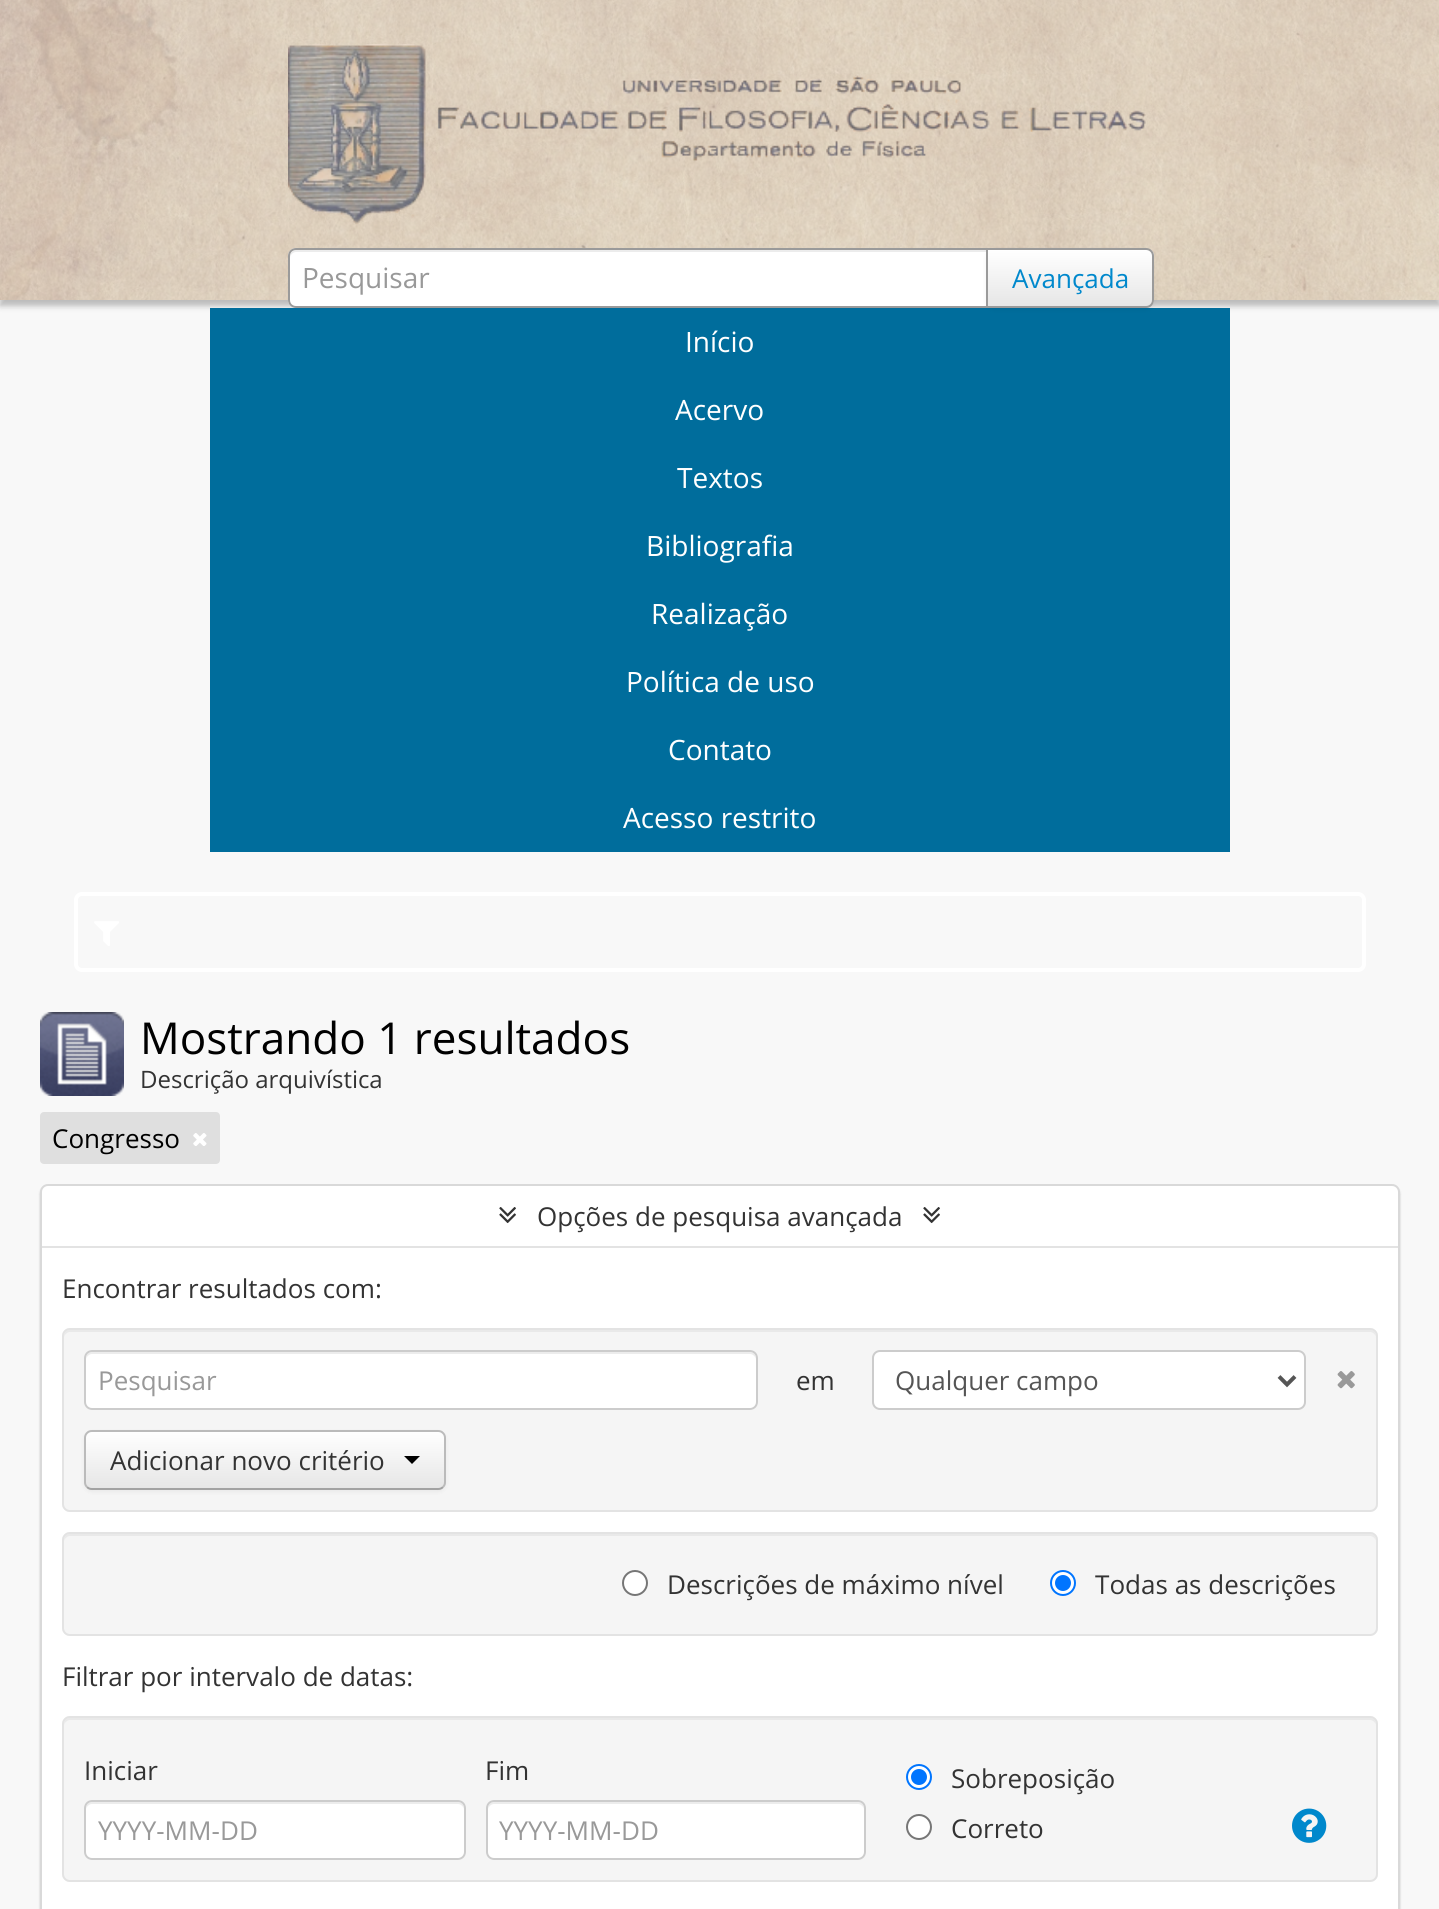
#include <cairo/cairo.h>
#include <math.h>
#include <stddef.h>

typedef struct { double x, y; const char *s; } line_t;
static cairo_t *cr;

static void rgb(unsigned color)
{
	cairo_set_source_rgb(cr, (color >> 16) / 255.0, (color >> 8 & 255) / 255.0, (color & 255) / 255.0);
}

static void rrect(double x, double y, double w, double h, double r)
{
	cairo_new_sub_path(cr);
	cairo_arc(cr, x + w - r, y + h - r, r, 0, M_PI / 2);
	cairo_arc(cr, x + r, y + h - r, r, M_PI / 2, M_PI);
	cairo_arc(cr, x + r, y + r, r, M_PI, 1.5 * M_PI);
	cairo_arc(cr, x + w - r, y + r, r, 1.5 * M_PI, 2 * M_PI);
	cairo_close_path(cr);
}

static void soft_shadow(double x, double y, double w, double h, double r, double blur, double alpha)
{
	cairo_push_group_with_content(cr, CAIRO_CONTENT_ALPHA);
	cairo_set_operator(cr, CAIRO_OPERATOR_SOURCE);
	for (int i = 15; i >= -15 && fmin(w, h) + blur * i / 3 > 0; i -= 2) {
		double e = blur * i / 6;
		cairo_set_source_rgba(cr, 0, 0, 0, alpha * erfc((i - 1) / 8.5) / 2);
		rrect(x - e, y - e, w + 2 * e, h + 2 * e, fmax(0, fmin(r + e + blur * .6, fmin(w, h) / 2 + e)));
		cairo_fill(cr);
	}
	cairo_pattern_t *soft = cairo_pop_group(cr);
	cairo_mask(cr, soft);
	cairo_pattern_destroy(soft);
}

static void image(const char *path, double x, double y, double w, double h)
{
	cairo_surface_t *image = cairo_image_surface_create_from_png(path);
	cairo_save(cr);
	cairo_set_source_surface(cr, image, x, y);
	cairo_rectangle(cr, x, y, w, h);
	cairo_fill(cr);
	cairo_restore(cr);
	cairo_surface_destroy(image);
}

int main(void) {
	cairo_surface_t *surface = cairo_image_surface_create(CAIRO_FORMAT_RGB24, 1439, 1909);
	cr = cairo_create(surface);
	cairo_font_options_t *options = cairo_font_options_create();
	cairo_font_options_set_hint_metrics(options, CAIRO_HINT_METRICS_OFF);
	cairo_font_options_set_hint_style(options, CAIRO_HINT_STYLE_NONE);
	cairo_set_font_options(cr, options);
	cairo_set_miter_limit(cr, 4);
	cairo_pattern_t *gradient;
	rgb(0xf8f8f8);
	cairo_paint(cr);
	rgb(0x000000);
	soft_shadow(0, 6, 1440, 300, 0, 3, 0.25);
	image("img/1.png", 0, 0, 1439, 300);
	image("img/2.png", 288, 44, 858, 180);
	rgb(0xffffff);
	cairo_new_path(cr);
	cairo_move_to(cr, 296, 248);
	cairo_line_to(cr, 988, 248);
	cairo_line_to(cr, 988, 308);
	cairo_line_to(cr, 296, 308);
	cairo_curve_to(cr, 291.5, 308, 288, 304.5, 288, 300);
	cairo_line_to(cr, 288, 256);
	cairo_curve_to(cr, 288, 251.5, 291.5, 248, 296, 248);
	cairo_close_path(cr);
	cairo_fill(cr);
	rgb(0xececec);
	cairo_new_path(cr);
	cairo_move_to(cr, 296, 252);
	cairo_line_to(cr, 986, 252);
	cairo_line_to(cr, 986, 250);
	cairo_line_to(cr, 296, 250);
	cairo_curve_to(cr, 293, 250, 290, 253, 290, 256);
	cairo_line_to(cr, 290, 258);
	cairo_curve_to(cr, 290, 255, 293, 252, 296, 252);
	cairo_close_path(cr);
	cairo_fill(cr);
	cairo_new_path(cr);
	cairo_move_to(cr, 296, 249);
	cairo_line_to(cr, 987, 249);
	cairo_line_to(cr, 987, 307);
	cairo_line_to(cr, 296, 307);
	cairo_curve_to(cr, 292, 307, 289, 304, 289, 300);
	cairo_line_to(cr, 289, 256);
	cairo_curve_to(cr, 289, 252, 292, 249, 296, 249);
	cairo_close_path(cr);
	rgb(0x9a9a9a);
	cairo_stroke(cr);
	rgb(0x006d9c);
	cairo_rectangle(cr, 210, 308, 1020, 544);
	cairo_fill(cr);
	rgb(0x000000);
	soft_shadow(986, 250, 168, 60, 8, 2, 0.05);
	cairo_save(cr);
	cairo_new_path(cr);
	cairo_move_to(cr, 986, 248);
	cairo_line_to(cr, 1146, 248);
	cairo_curve_to(cr, 1150.5, 248, 1154, 251.5, 1154, 256);
	cairo_line_to(cr, 1154, 300);
	cairo_curve_to(cr, 1154, 304.5, 1150.5, 308, 1146, 308);
	cairo_line_to(cr, 986, 308);
	cairo_close_path(cr);
	cairo_clip(cr);
	gradient = cairo_pattern_create_linear(1070, 250, 1070, 306);
	cairo_pattern_add_color_stop_rgba(gradient, 0, 1, 1, 1, 1);
	cairo_pattern_add_color_stop_rgba(gradient, 1, 0.902, 0.902, 0.902, 1);
	cairo_set_source(cr, gradient);
	cairo_pattern_destroy(gradient);
	cairo_rectangle(cr, 988, 250, 166, 56);
	cairo_fill(cr);
	cairo_restore(cr);
	cairo_new_path(cr);
	cairo_move_to(cr, 987, 249);
	cairo_line_to(cr, 1146, 249);
	cairo_curve_to(cr, 1150, 249, 1153, 252, 1153, 256);
	cairo_line_to(cr, 1153, 300);
	cairo_curve_to(cr, 1153, 304, 1150, 307, 1146, 307);
	cairo_line_to(cr, 987, 307);
	cairo_close_path(cr);
	rgb(0x9a9a9a);
	cairo_stroke(cr);
	rrect(76, 894, 1288, 76, 6);
	rgb(0xffffff);
	cairo_set_line_width(cr, 4);
	cairo_stroke(cr);
	image("img/3.png", 94, 921, 25, 25);
	image("img/4.png", 40, 1012, 84, 84);
	rgb(0xdfdfdf);
	rrect(40, 1112, 180, 52, 4);
	cairo_fill(cr);
	image("img/5.png", 193, 1133, 14, 13);
	rgb(0x000000);
	soft_shadow(40, 1186, 1360, 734, 8, 1, 0.2);
	rgb(0xffffff);
	rrect(41, 1185, 1358, 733, 7);
	cairo_fill_preserve(cr);
	rgb(0xd9d9d9);
	cairo_set_line_width(cr, 2);
	cairo_stroke(cr);
	image("img/6.png", 499, 1207, 17, 17);
	image("img/6.png", 923, 1207, 17, 17);
	rgb(0xe3e3e3);
	cairo_rectangle(cr, 42, 1246, 1356, 2);
	cairo_fill(cr);
	rgb(0xf5f5f5);
	rrect(62, 1328, 1316, 184, 8);
	cairo_fill(cr);
	rgb(0xe9e9e9);
	cairo_new_path(cr);
	cairo_move_to(cr, 70, 1332);
	cairo_line_to(cr, 1370, 1332);
	cairo_curve_to(cr, 1373, 1332, 1376, 1335, 1376, 1338);
	cairo_curve_to(cr, 1376, 1334, 1375, 1330, 1370, 1330);
	cairo_line_to(cr, 70, 1330);
	cairo_curve_to(cr, 65, 1330, 64, 1334, 64, 1338);
	cairo_curve_to(cr, 64, 1335, 67, 1332, 70, 1332);
	cairo_close_path(cr);
	cairo_fill(cr);
	rrect(63, 1329, 1314, 182, 7);
	rgb(0xe3e3e3);
	cairo_stroke(cr);
	rgb(0xffffff);
	rrect(84, 1350, 674, 60, 8);
	cairo_fill(cr);
	rgb(0xececec);
	cairo_new_path(cr);
	cairo_move_to(cr, 92, 1354);
	cairo_line_to(cr, 750, 1354);
	cairo_curve_to(cr, 753, 1354, 756, 1357, 756, 1360);
	cairo_curve_to(cr, 756, 1356, 755, 1352, 750, 1352);
	cairo_line_to(cr, 92, 1352);
	cairo_curve_to(cr, 87, 1352, 86, 1356, 86, 1360);
	cairo_curve_to(cr, 86, 1357, 89, 1354, 92, 1354);
	cairo_close_path(cr);
	cairo_fill(cr);
	rrect(85, 1351, 672, 58, 7);
	rgb(0xcccccc);
	cairo_stroke(cr);
	rgb(0xffffff);
	rrect(873, 1351, 432, 58, 7);
	cairo_fill_preserve(cr);
	rgb(0xcccccc);
	cairo_stroke(cr);
	cairo_new_path(cr);
	cairo_move_to(cr, 1279, 1376.5);
	cairo_line_to(cr, 1287, 1384.5);
	cairo_line_to(cr, 1295, 1376.5);
	rgb(0x555555);
	cairo_set_line_width(cr, 4);
	cairo_stroke(cr);
	image("img/7.png", 1337, 1371, 18, 18);
	rgb(0x000000);
	soft_shadow(84, 1432, 362, 60, 8, 2, 0.05);
	cairo_save(cr);
	rrect(84, 1430, 362, 60, 8);
	cairo_clip(cr);
	gradient = cairo_pattern_create_linear(265, 1432, 265, 1488);
	cairo_pattern_add_color_stop_rgba(gradient, 0, 1, 1, 1, 1);
	cairo_pattern_add_color_stop_rgba(gradient, 1, 0.902, 0.902, 0.902, 1);
	cairo_set_source(cr, gradient);
	cairo_pattern_destroy(gradient);
	cairo_rectangle(cr, 84, 1432, 362, 56);
	cairo_fill(cr);
	cairo_restore(cr);
	cairo_new_path(cr);
	cairo_move_to(cr, 443, 1487);
	cairo_curve_to(cr, 441.5, 1488.5, 440, 1489, 438, 1489);
	cairo_line_to(cr, 92, 1489);
	cairo_curve_to(cr, 90, 1489, 88.5, 1488.5, 87, 1487);
	rgb(0xa2a2a2);
	cairo_set_line_width(cr, 2);
	cairo_stroke(cr);
	cairo_new_path(cr);
	cairo_move_to(cr, 87, 1487);
	cairo_curve_to(cr, 85.5, 1485.5, 85, 1484, 85, 1482);
	cairo_line_to(cr, 85, 1438);
	cairo_curve_to(cr, 85, 1436, 85.5, 1434.5, 87, 1433);
	cairo_curve_to(cr, 88.5, 1431.5, 90, 1431, 92, 1431);
	cairo_line_to(cr, 438, 1431);
	cairo_curve_to(cr, 440, 1431, 441.5, 1431.5, 443, 1433);
	cairo_curve_to(cr, 444.5, 1434.5, 445, 1436, 445, 1438);
	cairo_line_to(cr, 445, 1482);
	cairo_curve_to(cr, 445, 1484, 444.5, 1485.5, 443, 1487);
	rgb(0xbbbbbb);
	cairo_stroke(cr);
	rgb(0x000000);
	cairo_new_path(cr);
	cairo_move_to(cr, 404, 1456);
	cairo_line_to(cr, 420, 1456);
	cairo_line_to(cr, 412, 1464);
	cairo_close_path(cr);
	cairo_fill(cr);
	rgb(0xf5f5f5);
	rrect(62, 1532, 1316, 104, 8);
	cairo_fill(cr);
	rgb(0xe9e9e9);
	cairo_new_path(cr);
	cairo_move_to(cr, 70, 1536);
	cairo_line_to(cr, 1370, 1536);
	cairo_curve_to(cr, 1373, 1536, 1376, 1539, 1376, 1542);
	cairo_curve_to(cr, 1376, 1538, 1375, 1534, 1370, 1534);
	cairo_line_to(cr, 70, 1534);
	cairo_curve_to(cr, 65, 1534, 64, 1538, 64, 1542);
	cairo_curve_to(cr, 64, 1539, 67, 1536, 70, 1536);
	cairo_close_path(cr);
	cairo_fill(cr);
	rrect(63, 1533, 1314, 102, 7);
	rgb(0xe3e3e3);
	cairo_stroke(cr);
	rgb(0xffffff);
	cairo_arc(cr, 635, 1583, 12, 0, 2 * M_PI);
	cairo_fill_preserve(cr);
	rgb(0x767676);
	cairo_stroke(cr);
	rgb(0xffffff);
	cairo_arc(cr, 1063, 1583, 12, 0, 2 * M_PI);
	cairo_fill_preserve(cr);
	rgb(0x0075ff);
	cairo_stroke(cr);
	cairo_arc(cr, 1063, 1583, 8, 0, 2 * M_PI);
	cairo_fill(cr);
	rgb(0xf5f5f5);
	rrect(62, 1716, 1316, 166, 8);
	cairo_fill(cr);
	rgb(0xe9e9e9);
	cairo_new_path(cr);
	cairo_move_to(cr, 70, 1720);
	cairo_line_to(cr, 1370, 1720);
	cairo_curve_to(cr, 1373, 1720, 1376, 1723, 1376, 1726);
	cairo_curve_to(cr, 1376, 1722, 1375, 1718, 1370, 1718);
	cairo_line_to(cr, 70, 1718);
	cairo_curve_to(cr, 65, 1718, 64, 1722, 64, 1726);
	cairo_curve_to(cr, 64, 1723, 67, 1720, 70, 1720);
	cairo_close_path(cr);
	cairo_fill(cr);
	rrect(63, 1717, 1314, 164, 7);
	rgb(0xe3e3e3);
	cairo_stroke(cr);
	rgb(0xffffff);
	rrect(84, 1800, 382, 60, 8);
	cairo_fill(cr);
	rgb(0xececec);
	cairo_new_path(cr);
	cairo_move_to(cr, 92, 1804);
	cairo_line_to(cr, 458, 1804);
	cairo_curve_to(cr, 461, 1804, 464, 1807, 464, 1810);
	cairo_curve_to(cr, 464, 1806, 463, 1802, 458, 1802);
	cairo_line_to(cr, 92, 1802);
	cairo_curve_to(cr, 87, 1802, 86, 1806, 86, 1810);
	cairo_curve_to(cr, 86, 1807, 89, 1804, 92, 1804);
	cairo_close_path(cr);
	cairo_fill(cr);
	rrect(85, 1801, 380, 58, 7);
	rgb(0xcccccc);
	cairo_stroke(cr);
	rgb(0xffffff);
	rrect(486, 1800, 380, 60, 8);
	cairo_fill(cr);
	rgb(0xececec);
	cairo_new_path(cr);
	cairo_move_to(cr, 494, 1804);
	cairo_line_to(cr, 858, 1804);
	cairo_curve_to(cr, 861, 1804, 864, 1807, 864, 1810);
	cairo_curve_to(cr, 864, 1806, 863, 1802, 858, 1802);
	cairo_line_to(cr, 494, 1802);
	cairo_curve_to(cr, 489, 1802, 488, 1806, 488, 1810);
	cairo_curve_to(cr, 488, 1807, 491, 1804, 494, 1804);
	cairo_close_path(cr);
	cairo_fill(cr);
	rrect(487, 1801, 378, 58, 7);
	rgb(0xcccccc);
	cairo_stroke(cr);
	rgb(0xffffff);
	cairo_arc(cr, 919, 1777, 12, 0, 2 * M_PI);
	cairo_fill_preserve(cr);
	rgb(0x0075ff);
	cairo_stroke(cr);
	cairo_arc(cr, 919, 1777, 8, 0, 2 * M_PI);
	cairo_fill(cr);
	rgb(0xffffff);
	cairo_arc(cr, 919, 1827, 12, 0, 2 * M_PI);
	cairo_fill_preserve(cr);
	rgb(0x767676);
	cairo_stroke(cr);
	image("img/8.png", 1292, 1808, 35, 35);
	cairo_select_font_face(cr, "Open Sans", CAIRO_FONT_SLANT_NORMAL, CAIRO_FONT_WEIGHT_NORMAL);
	cairo_set_font_size(cr, 28);
	rgb(0x999999);
	cairo_move_to(cr, 302, 288);
	cairo_show_text(cr, "Pesquisar");
	cairo_set_font_size(cr, 26);
	rgb(0x0088cc);
	cairo_move_to(cr, 1012, 288);
	cairo_show_text(cr, "Avançada");
	cairo_set_font_size(cr, 28);
	rgb(0xffffff);
	{
		static const line_t items[] = {
			{685, 352, "Início"},
			{675, 420, "Acervo"},
			{677, 488, "Textos"},
			{646, 556, "Bibliografia"},
			{651, 624, "Realização"},
			{626, 692, "Política de uso"},
			{668, 760, "Contato"},
			{623, 828, "Acesso restrito"},
		};
		for (size_t i = 0; i < sizeof items / sizeof *items; i++) {
			cairo_move_to(cr, items[i].x, items[i].y);
			cairo_show_text(cr, items[i].s);
		}
	}
	cairo_set_font_size(cr, 44);
	rgb(0x000000);
	cairo_move_to(cr, 140, 1054);
	cairo_show_text(cr, "Mostrando 1 resultados");
	cairo_set_font_size(cr, 24);
	rgb(0x333333);
	cairo_move_to(cr, 140, 1088);
	cairo_show_text(cr, "Descrição arquivística");
	cairo_set_font_size(cr, 26);
	rgb(0x000000);
	cairo_move_to(cr, 52, 1148);
	cairo_show_text(cr, "Congresso");
	rgb(0x333333);
	cairo_move_to(cr, 537, 1226);
	cairo_show_text(cr, "Opções de pesquisa avançada");
	cairo_move_to(cr, 62, 1298);
	cairo_show_text(cr, "Encontrar resultados com:");
	rgb(0x999999);
	cairo_move_to(cr, 98, 1390);
	cairo_show_text(cr, "Pesquisar");
	rgb(0x333333);
	cairo_move_to(cr, 796, 1390);
	cairo_show_text(cr, "em");
	rgb(0x555555);
	cairo_move_to(cr, 895, 1390);
	cairo_show_text(cr, "Qualquer campo");
	rgb(0x333333);
	{
		static const line_t items[] = {
			{110, 1470, "Adicionar novo critério"},
			{667, 1594, "Descrições de máximo nível"},
			{1095, 1594, "Todas as descrições"},
			{62, 1686, "Filtrar por intervalo de datas:"},
			{84, 1780, "Iniciar"},
		};
		for (size_t i = 0; i < sizeof items / sizeof *items; i++) {
			cairo_move_to(cr, items[i].x, items[i].y);
			cairo_show_text(cr, items[i].s);
		}
	}
	rgb(0x999999);
	cairo_move_to(cr, 98, 1840);
	cairo_show_text(cr, "YYYY-MM-DD");
	rgb(0x333333);
	cairo_move_to(cr, 485, 1780);
	cairo_show_text(cr, "Fim");
	rgb(0x999999);
	cairo_move_to(cr, 499, 1840);
	cairo_show_text(cr, "YYYY-MM-DD");
	rgb(0x333333);
	cairo_move_to(cr, 951, 1788);
	cairo_show_text(cr, "Sobreposição");
	cairo_move_to(cr, 951, 1838);
	cairo_show_text(cr, "Correto");
	cairo_surface_write_to_png(surface, "page.png");
	cairo_font_options_destroy(options);
	cairo_destroy(cr);
	cairo_surface_destroy(surface);
	return 0;
}
